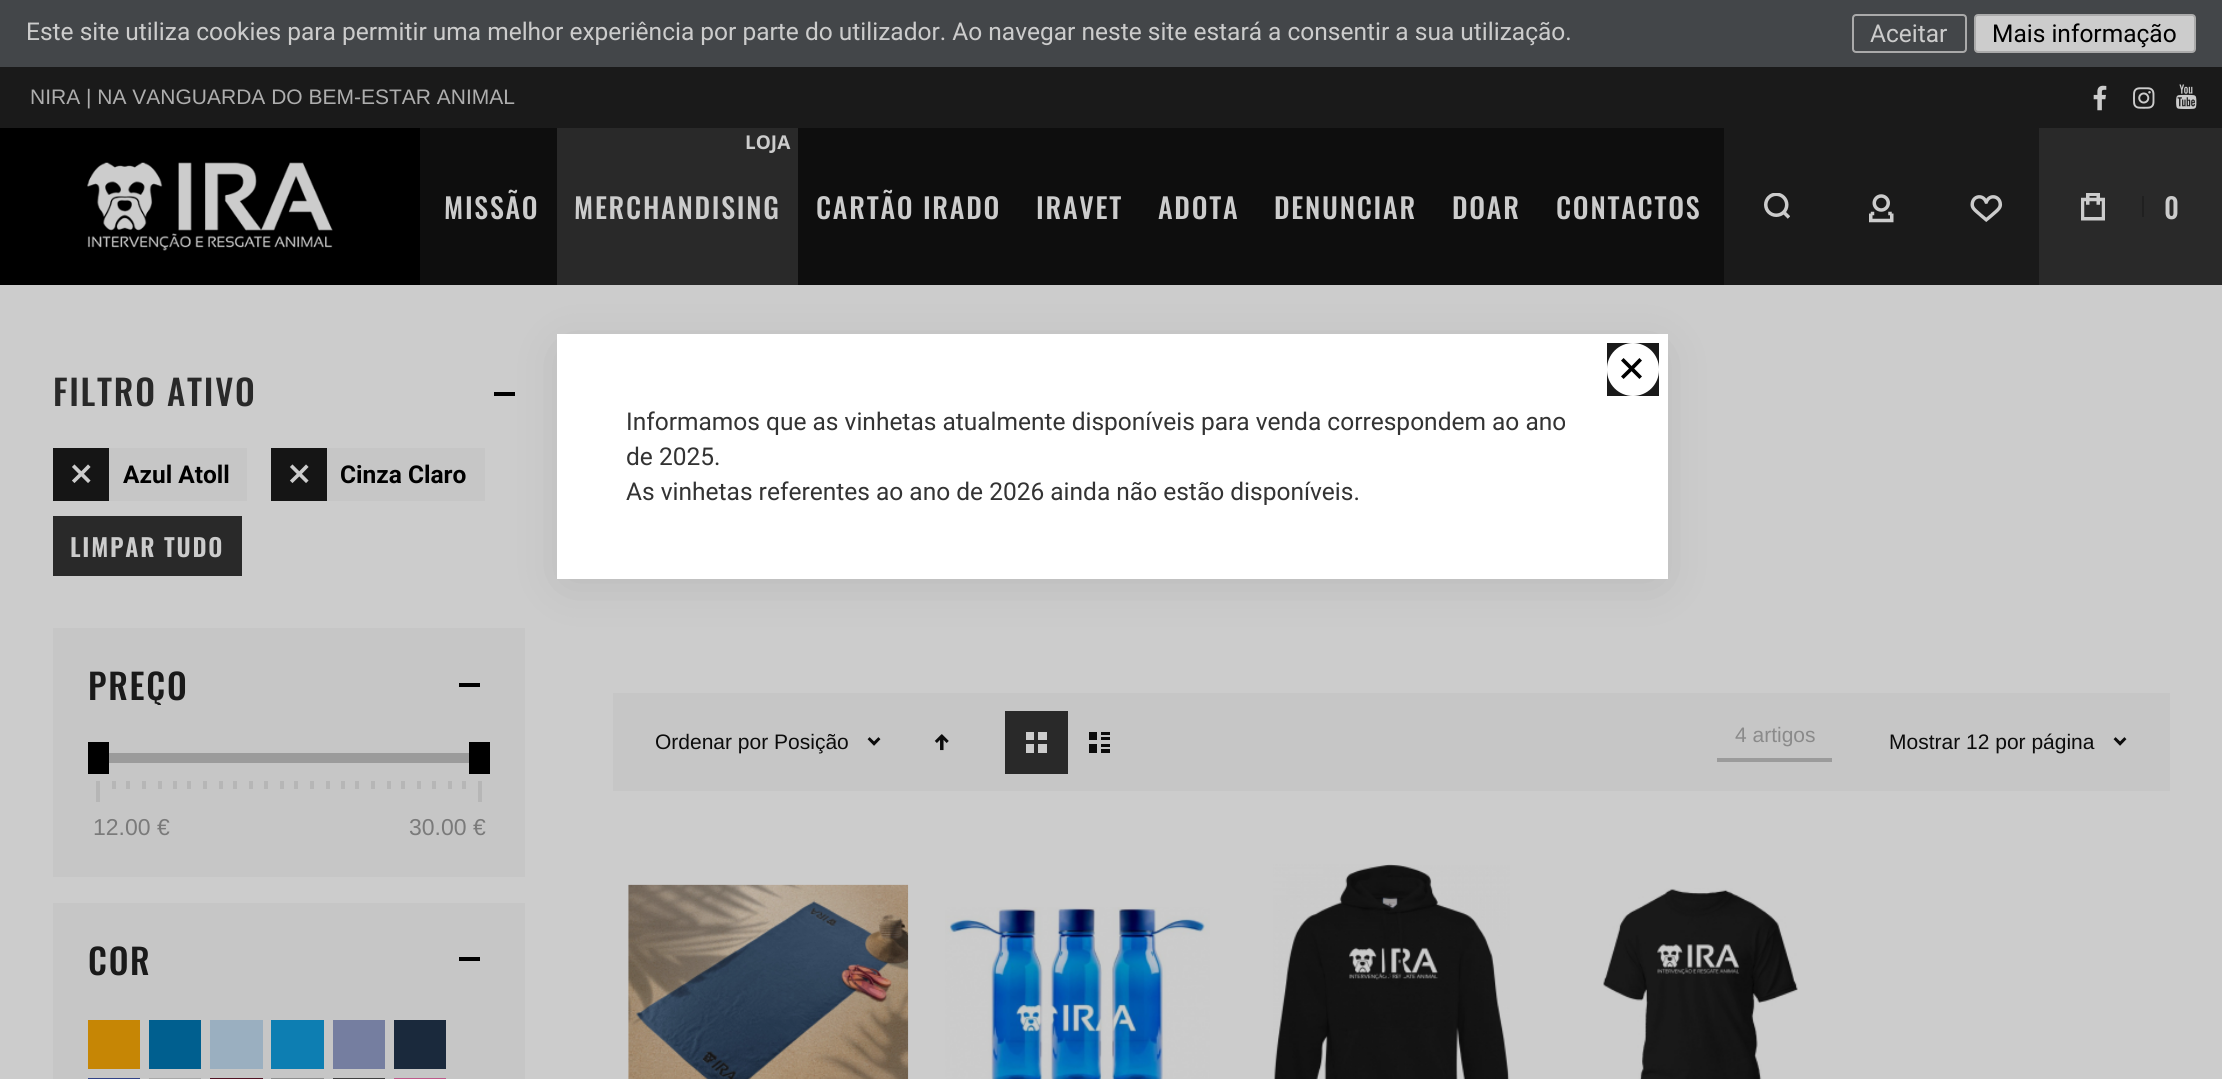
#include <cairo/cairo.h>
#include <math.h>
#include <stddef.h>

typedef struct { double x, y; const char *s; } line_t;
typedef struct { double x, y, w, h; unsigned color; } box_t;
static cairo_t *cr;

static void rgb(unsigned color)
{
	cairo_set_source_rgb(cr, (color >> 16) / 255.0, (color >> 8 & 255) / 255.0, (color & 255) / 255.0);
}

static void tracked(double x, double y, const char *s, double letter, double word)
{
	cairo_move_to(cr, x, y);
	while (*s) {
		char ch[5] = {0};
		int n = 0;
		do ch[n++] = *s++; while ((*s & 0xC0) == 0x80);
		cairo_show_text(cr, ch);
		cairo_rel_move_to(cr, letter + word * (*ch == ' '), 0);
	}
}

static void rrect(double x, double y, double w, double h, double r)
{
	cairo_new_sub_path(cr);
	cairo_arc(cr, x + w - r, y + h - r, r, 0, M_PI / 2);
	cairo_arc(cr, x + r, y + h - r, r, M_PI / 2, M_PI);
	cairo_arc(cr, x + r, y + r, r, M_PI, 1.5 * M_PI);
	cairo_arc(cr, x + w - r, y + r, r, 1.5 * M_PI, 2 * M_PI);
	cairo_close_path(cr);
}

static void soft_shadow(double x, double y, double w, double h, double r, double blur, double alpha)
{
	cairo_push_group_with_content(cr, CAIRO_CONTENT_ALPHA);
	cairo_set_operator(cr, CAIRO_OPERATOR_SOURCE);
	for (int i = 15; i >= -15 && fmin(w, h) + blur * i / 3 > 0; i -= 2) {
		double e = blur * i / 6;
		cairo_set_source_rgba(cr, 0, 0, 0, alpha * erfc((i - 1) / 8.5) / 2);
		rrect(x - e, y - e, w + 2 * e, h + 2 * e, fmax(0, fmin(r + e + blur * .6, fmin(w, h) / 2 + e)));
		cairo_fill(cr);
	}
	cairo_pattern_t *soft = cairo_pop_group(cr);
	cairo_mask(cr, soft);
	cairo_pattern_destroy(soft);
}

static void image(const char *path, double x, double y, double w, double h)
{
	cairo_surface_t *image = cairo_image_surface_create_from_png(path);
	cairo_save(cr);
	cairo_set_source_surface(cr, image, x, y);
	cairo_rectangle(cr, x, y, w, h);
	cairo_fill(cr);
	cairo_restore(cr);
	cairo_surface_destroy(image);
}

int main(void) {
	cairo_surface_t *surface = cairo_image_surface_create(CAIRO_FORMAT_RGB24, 2222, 1079);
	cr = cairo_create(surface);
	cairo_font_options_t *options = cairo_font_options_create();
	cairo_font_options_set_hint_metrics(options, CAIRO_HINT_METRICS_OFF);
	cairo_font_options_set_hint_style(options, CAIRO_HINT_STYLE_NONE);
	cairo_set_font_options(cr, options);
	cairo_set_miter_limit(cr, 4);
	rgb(0xcccccc);
	cairo_paint(cr);
	rgb(0x434649);
	cairo_rectangle(cr, 0, 0, 2222, 67);
	cairo_fill(cr);
	rrect(1853, 15, 113, 37, 3);
	rgb(0xaaaaaa);
	cairo_stroke(cr);
	rgb(0xcccccc);
	rrect(1975, 15, 220, 37, 3);
	cairo_fill_preserve(cr);
	rgb(0xaaaaaa);
	cairo_stroke(cr);
	rgb(0x0e0e0e);
	cairo_rectangle(cr, 420, 128, 1304, 157);
	cairo_fill(cr);
	rgb(0x1a1a1a);
	cairo_rectangle(cr, 0, 67, 2222, 61);
	cairo_fill(cr);
	image("img/1.png", 2093, 85, 14, 26);
	image("img/2.png", 2133, 87, 22, 22);
	rgb(0x000000);
	cairo_rectangle(cr, 0, 128, 420, 157);
	cairo_fill(cr);
	image("img/3.png", 87, 162, 246, 89);
	rgb(0x292929);
	cairo_rectangle(cr, 557, 128, 241, 157);
	cairo_fill(cr);
	rgb(0x1a1a1a);
	cairo_rectangle(cr, 1724, 128, 315, 157);
	cairo_fill(cr);
	image("img/4.png", 1869, 194, 25, 29);
	image("img/5.png", 1764, 193, 26, 26);
	image("img/6.png", 1970, 195, 33, 27);
	rgb(0x292929);
	cairo_rectangle(cr, 2039, 128, 183, 157);
	cairo_fill(cr);
	image("img/7.png", 2081, 193, 24, 28);
	{
		static const box_t items[] = {
			{2142, 196, 2, 21, 0x202020},
			{494, 392, 21, 4, 0x000000},
			{109, 448, 138, 53, 0xc6c6c6},
			{53, 448, 56, 53, 0x151515},
			{327, 448, 158, 53, 0xc6c6c6},
			{271, 448, 56, 53, 0x151515},
			{53, 516, 189, 60, 0x292929},
			{53, 628, 472, 249, 0xc6c6c6},
			{459, 683, 21, 4, 0x000000},
			{88, 742, 21, 32, 0x000000},
			{109, 753, 360, 10, 0x9b9b9b},
			{469, 742, 21, 32, 0x000000},
			{96, 781, 4, 21, 0xb6b6b6},
			{112, 781, 4, 8, 0xb6b6b6},
			{126, 781, 4, 8, 0xb6b6b6},
			{142, 781, 4, 8, 0xb6b6b6},
			{158, 781, 4, 8, 0xb6b6b6},
			{173, 781, 4, 8, 0xb6b6b6},
			{187, 781, 4, 8, 0xb6b6b6},
			{203, 781, 4, 8, 0xb6b6b6},
			{219, 781, 4, 8, 0xb6b6b6},
			{233, 781, 4, 8, 0xb6b6b6},
			{249, 781, 4, 8, 0xb6b6b6},
			{264, 781, 4, 8, 0xb6b6b6},
			{280, 781, 4, 8, 0xb6b6b6},
			{294, 781, 4, 8, 0xb6b6b6},
			{310, 781, 4, 8, 0xb6b6b6},
			{326, 781, 4, 8, 0xb6b6b6},
			{341, 781, 4, 8, 0xb6b6b6},
			{355, 781, 4, 8, 0xb6b6b6},
			{371, 781, 4, 8, 0xb6b6b6},
			{387, 781, 4, 8, 0xb6b6b6},
			{401, 781, 4, 8, 0xb6b6b6},
			{417, 781, 4, 8, 0xb6b6b6},
			{432, 781, 4, 8, 0xb6b6b6},
			{448, 781, 4, 8, 0xb6b6b6},
			{462, 781, 4, 8, 0xb6b6b6},
			{478, 781, 4, 21, 0xb6b6b6},
			{53, 903, 472, 176, 0xc6c6c6},
			{459, 957, 21, 4, 0x000000},
			{88, 1020, 52, 49, 0xc68605},
			{149, 1020, 52, 49, 0x005f8f},
			{210, 1020, 53, 49, 0x9aafc0},
			{271, 1020, 53, 49, 0x0d7eb2},
			{333, 1020, 52, 49, 0x757ea0},
			{394, 1020, 52, 49, 0x1a293c},
			{88, 1078, 52, 1, 0x314287},
		};
		for (size_t i = 0; i < sizeof items / sizeof *items; i++) {
			rgb(items[i].color);
			cairo_rectangle(cr, items[i].x, items[i].y, items[i].w, items[i].h);
			cairo_fill(cr);
		}
	}
	cairo_rectangle(cr, 150, 1079, 50, 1);
	rgb(0xa8a8a8);
	cairo_stroke(cr);
	{
		static const box_t items[] = {
			{210, 1078, 53, 1, 0x521324},
			{271, 1078, 53, 1, 0x8e8e8e},
			{333, 1078, 52, 1, 0x414141},
			{394, 1078, 52, 1, 0xbd5a8b},
			{613, 693, 1557, 98, 0xc6c6c6},
		};
		for (size_t i = 0; i < sizeof items / sizeof *items; i++) {
			rgb(items[i].color);
			cairo_rectangle(cr, items[i].x, items[i].y, items[i].w, items[i].h);
			cairo_fill(cr);
		}
	}
	image("img/8.png", 867, 737, 14, 9);
	image("img/9.png", 934, 734, 15, 17);
	{
		static const box_t items[] = {
			{1005, 711, 63, 63, 0x292929},
			{1026, 732, 8, 8, 0xcccccc},
			{1038, 732, 9, 8, 0xcccccc},
			{1026, 744, 8, 9, 0xcccccc},
			{1038, 744, 9, 9, 0xcccccc},
		};
		for (size_t i = 0; i < sizeof items / sizeof *items; i++) {
			rgb(items[i].color);
			cairo_rectangle(cr, items[i].x, items[i].y, items[i].w, items[i].h);
			cairo_fill(cr);
		}
	}
	image("img/10.png", 1089, 732, 21, 21);
	rgb(0x9b9b9b);
	cairo_rectangle(cr, 1717, 758, 115, 4);
	cairo_fill(cr);
	image("img/8.png", 2113, 737, 14, 9);
	image("img/11.png", 628, 884, 281, 195);
	image("img/12.png", 945, 907, 265, 172);
	image("img/13.png", 1273, 864, 237, 215);
	image("img/14.png", 1603, 888, 195, 191);
	rgb(0x000000);
	soft_shadow(565, 352, 1094, 227, 0, 26, 0.11);
	rgb(0xffffff);
	cairo_rectangle(cr, 557, 334, 1111, 245);
	cairo_fill(cr);
	rgb(0x1a1a1a);
	cairo_rectangle(cr, 1607, 343, 52, 53);
	cairo_fill(cr);
	rgb(0xffffff);
	rrect(1607, 343, 52, 53, 26);
	cairo_fill(cr);
	cairo_select_font_face(cr, "Roboto", CAIRO_FONT_SLANT_NORMAL, CAIRO_FONT_WEIGHT_NORMAL);
	cairo_set_font_size(cr, 24.5);
	rgb(0xcccccc);
	cairo_move_to(cr, 26, 40);
	cairo_show_text(cr, "Este site utiliza cookies para permitir uma melhor experiência por parte do utilizador. Ao navegar neste site estará a consentir a sua utilização.");
	cairo_move_to(cr, 1870, 42);
	cairo_show_text(cr, "Aceitar");
	rgb(0x000000);
	cairo_move_to(cr, 1992, 42);
	cairo_show_text(cr, "Mais informação");
	cairo_select_font_face(cr, "Liberation Sans", CAIRO_FONT_SLANT_NORMAL, CAIRO_FONT_WEIGHT_NORMAL);
	cairo_set_font_size(cr, 21);
	rgb(0xaeaeae);
	cairo_move_to(cr, 30, 104);
	cairo_show_text(cr, "NIRA | NA VANGUARDA DO BEM-ESTAR ANIMAL");
	cairo_select_font_face(cr, "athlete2", CAIRO_FONT_SLANT_NORMAL, CAIRO_FONT_WEIGHT_NORMAL);
	cairo_set_font_size(cr, 24.5);
	rgb(0xcccccc);
	cairo_move_to(cr, 2174, 109);
	cairo_show_text(cr, "4");
	cairo_select_font_face(cr, "Oswald Medium", CAIRO_FONT_SLANT_NORMAL, CAIRO_FONT_WEIGHT_NORMAL);
	cairo_set_font_size(cr, 28);
	tracked(444, 219, "MISSÃO", 1.75, 0);
	cairo_select_font_face(cr, "Open Sans", CAIRO_FONT_SLANT_NORMAL, CAIRO_FONT_WEIGHT_BOLD);
	cairo_set_font_size(cr, 19);
	cairo_move_to(cr, 745, 149);
	cairo_show_text(cr, "LOJA");
	cairo_select_font_face(cr, "Oswald Medium", CAIRO_FONT_SLANT_NORMAL, CAIRO_FONT_WEIGHT_NORMAL);
	cairo_set_font_size(cr, 28);
	{
		static const line_t items[] = {
			{574, 219, "MERCHANDISING"},
			{816, 219, "CARTÃO IRADO"},
			{1036, 219, "IRAVET"},
			{1158, 219, "ADOTA"},
			{1274, 219, "DENUNCIAR"},
			{1452, 219, "DOAR"},
			{1556, 219, "CONTACTOS"},
			{2164, 219, "0"},
		};
		for (size_t i = 0; i < sizeof items / sizeof *items; i++) {
			tracked(items[i].x, items[i].y, items[i].s, 1.75, 0);
		}
	}
	cairo_set_font_size(cr, 35);
	rgb(0x292929);
	tracked(53, 406, "FILTRO ATIVO", 1.75, 0);
	cairo_select_font_face(cr, "athlete2", CAIRO_FONT_SLANT_NORMAL, CAIRO_FONT_WEIGHT_BOLD);
	cairo_set_font_size(cr, 18);
	rgb(0xcccccc);
	cairo_move_to(cr, 72, 483);
	cairo_show_text(cr, "@");
	cairo_select_font_face(cr, "Roboto", CAIRO_FONT_SLANT_NORMAL, CAIRO_FONT_WEIGHT_BOLD);
	cairo_set_font_size(cr, 24.5);
	rgb(0x000000);
	cairo_move_to(cr, 123, 483);
	cairo_show_text(cr, "Azul Atoll");
	cairo_select_font_face(cr, "athlete2", CAIRO_FONT_SLANT_NORMAL, CAIRO_FONT_WEIGHT_BOLD);
	cairo_set_font_size(cr, 18);
	rgb(0xcccccc);
	cairo_move_to(cr, 290, 483);
	cairo_show_text(cr, "@");
	cairo_select_font_face(cr, "Roboto", CAIRO_FONT_SLANT_NORMAL, CAIRO_FONT_WEIGHT_BOLD);
	cairo_set_font_size(cr, 24.5);
	rgb(0x000000);
	cairo_move_to(cr, 340, 483);
	cairo_show_text(cr, "Cinza Claro");
	cairo_select_font_face(cr, "Oswald SemiBold", CAIRO_FONT_SLANT_NORMAL, CAIRO_FONT_WEIGHT_NORMAL);
	rgb(0xcccccc);
	tracked(70, 557, "LIMPAR TUDO", 1.75, 0);
	cairo_save(cr);
	cairo_rectangle(cr, 88, 663, 402, 42);
	cairo_clip(cr);
	cairo_select_font_face(cr, "Oswald Medium", CAIRO_FONT_SLANT_NORMAL, CAIRO_FONT_WEIGHT_NORMAL);
	cairo_set_font_size(cr, 35);
	rgb(0x1a1a1a);
	tracked(88, 700, "PREÇO", 1.75, 0);
	cairo_restore(cr);
	cairo_select_font_face(cr, "Liberation Sans", CAIRO_FONT_SLANT_NORMAL, CAIRO_FONT_WEIGHT_NORMAL);
	cairo_set_font_size(cr, 23);
	rgb(0x7a7a7a);
	cairo_move_to(cr, 93, 835);
	cairo_show_text(cr, "12.00 €");
	cairo_move_to(cr, 409, 835);
	cairo_show_text(cr, "30.00 €");
	cairo_select_font_face(cr, "Oswald Medium", CAIRO_FONT_SLANT_NORMAL, CAIRO_FONT_WEIGHT_NORMAL);
	cairo_set_font_size(cr, 35);
	rgb(0x1a1a1a);
	tracked(88, 975, "COR", 1.75, 0);
	cairo_select_font_face(cr, "Liberation Sans", CAIRO_FONT_SLANT_NORMAL, CAIRO_FONT_WEIGHT_NORMAL);
	cairo_set_font_size(cr, 21);
	rgb(0x0c0c0c);
	cairo_move_to(cr, 655, 749);
	cairo_show_text(cr, "Ordenar por Posição");
	rgb(0x8a8a8a);
	cairo_move_to(cr, 1735, 742);
	cairo_show_text(cr, "4 artigos");
	rgb(0x0c0c0c);
	cairo_move_to(cr, 1889, 749);
	cairo_show_text(cr, "Mostrar 12 por página");
	cairo_select_font_face(cr, "athlete2", CAIRO_FONT_SLANT_NORMAL, CAIRO_FONT_WEIGHT_NORMAL);
	rgb(0x000000);
	tracked(1621, 379, "@", 1.75, 0);
	cairo_select_font_face(cr, "Roboto", CAIRO_FONT_SLANT_NORMAL, CAIRO_FONT_WEIGHT_NORMAL);
	cairo_set_font_size(cr, 24.5);
	rgb(0x333333);
	{
		static const line_t items[] = {
			{626, 430, "Informamos que as vinhetas atualmente disponíveis para venda correspondem ao ano"},
			{626, 465, "de 2025."},
			{626, 500, "As vinhetas referentes ao ano de 2026 ainda não estão disponíveis."},
		};
		for (size_t i = 0; i < sizeof items / sizeof *items; i++) {
			cairo_move_to(cr, items[i].x, items[i].y);
			cairo_show_text(cr, items[i].s);
		}
	}
	cairo_surface_write_to_png(surface, "page.png");
	cairo_font_options_destroy(options);
	cairo_destroy(cr);
	cairo_surface_destroy(surface);
	return 0;
}
